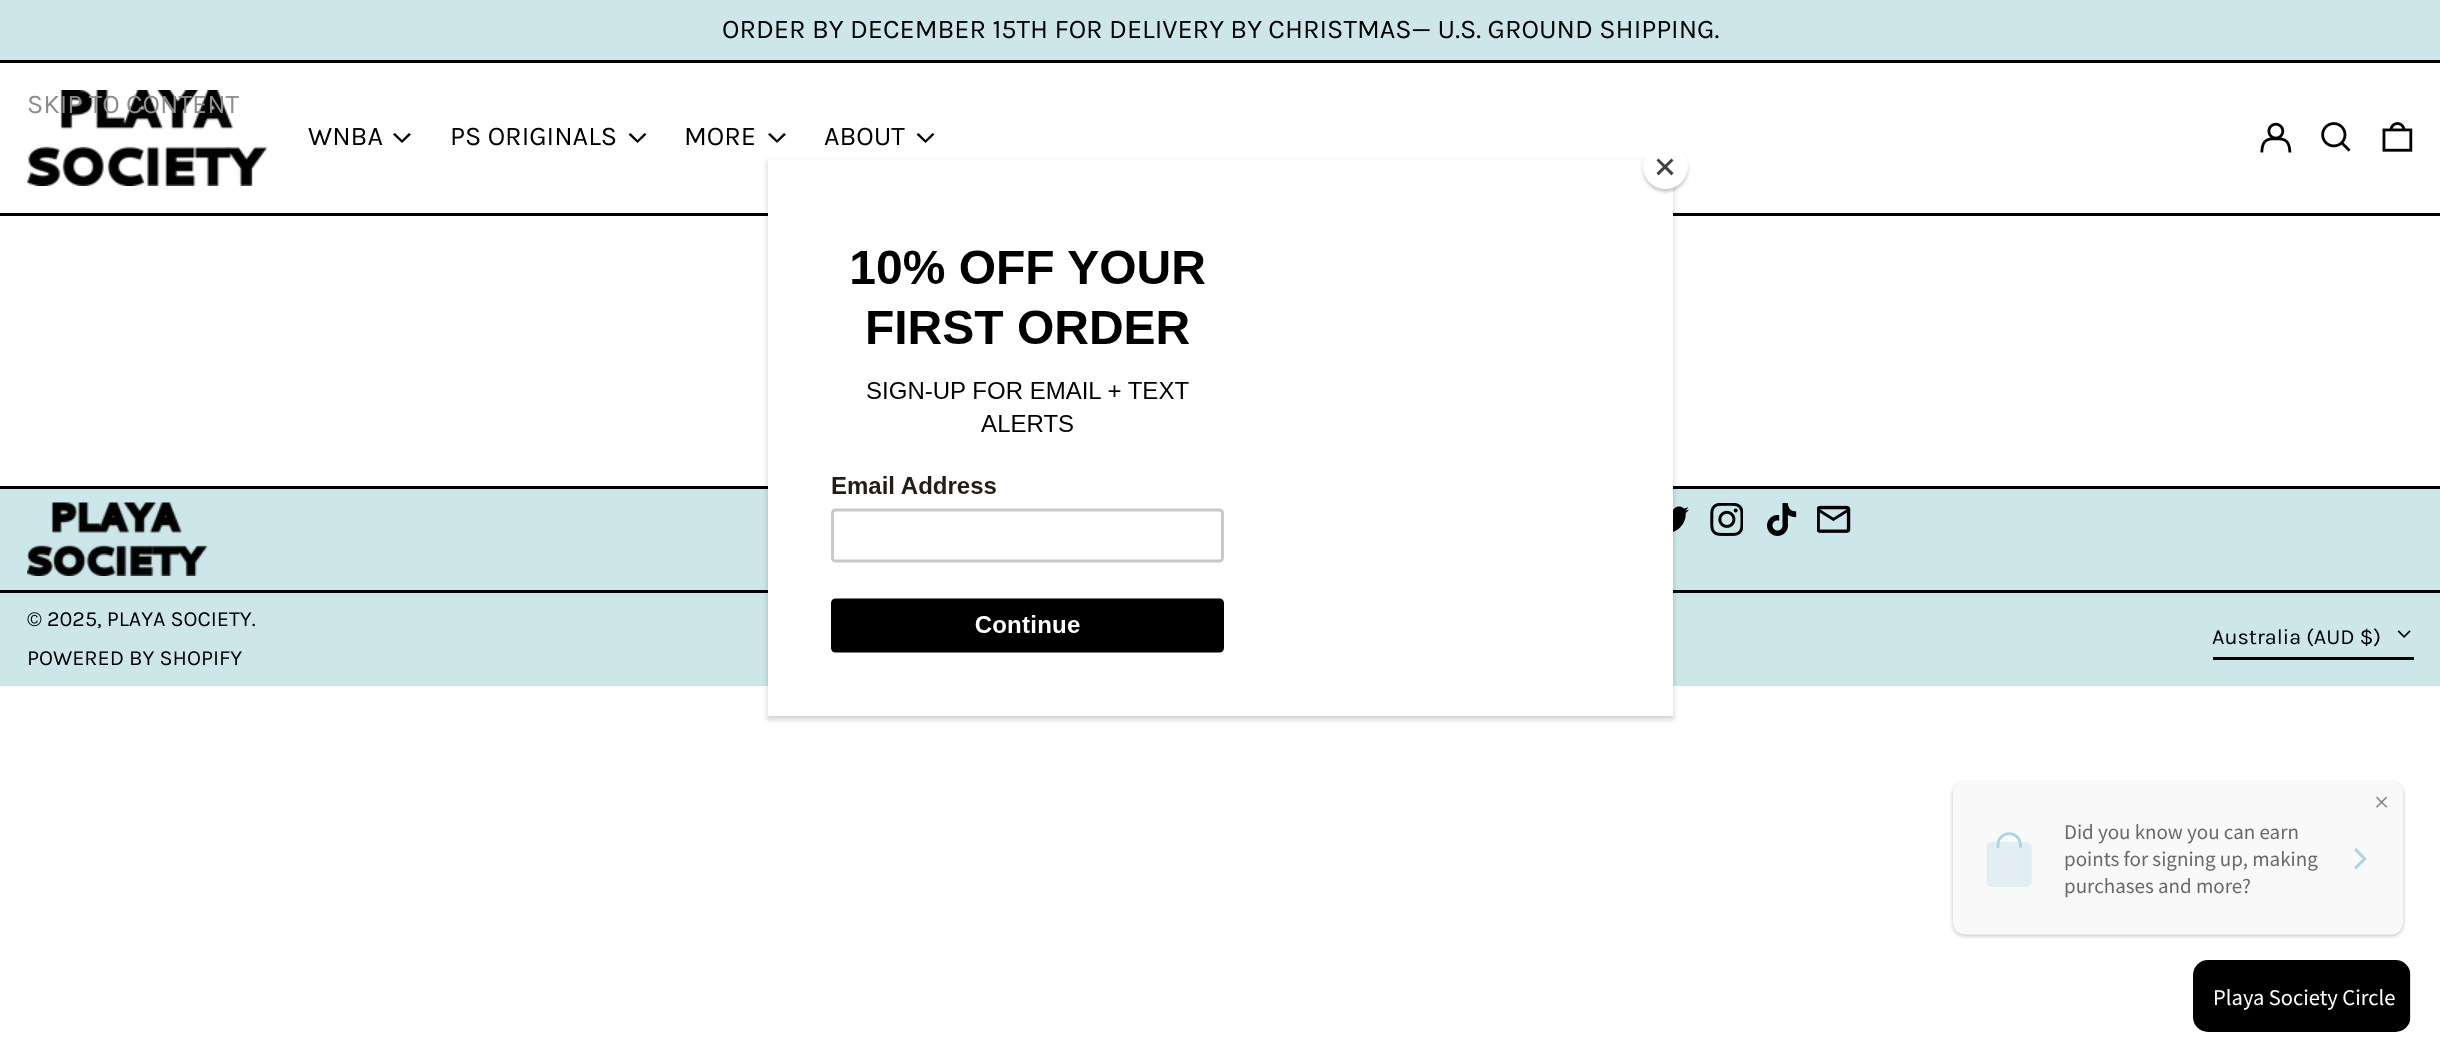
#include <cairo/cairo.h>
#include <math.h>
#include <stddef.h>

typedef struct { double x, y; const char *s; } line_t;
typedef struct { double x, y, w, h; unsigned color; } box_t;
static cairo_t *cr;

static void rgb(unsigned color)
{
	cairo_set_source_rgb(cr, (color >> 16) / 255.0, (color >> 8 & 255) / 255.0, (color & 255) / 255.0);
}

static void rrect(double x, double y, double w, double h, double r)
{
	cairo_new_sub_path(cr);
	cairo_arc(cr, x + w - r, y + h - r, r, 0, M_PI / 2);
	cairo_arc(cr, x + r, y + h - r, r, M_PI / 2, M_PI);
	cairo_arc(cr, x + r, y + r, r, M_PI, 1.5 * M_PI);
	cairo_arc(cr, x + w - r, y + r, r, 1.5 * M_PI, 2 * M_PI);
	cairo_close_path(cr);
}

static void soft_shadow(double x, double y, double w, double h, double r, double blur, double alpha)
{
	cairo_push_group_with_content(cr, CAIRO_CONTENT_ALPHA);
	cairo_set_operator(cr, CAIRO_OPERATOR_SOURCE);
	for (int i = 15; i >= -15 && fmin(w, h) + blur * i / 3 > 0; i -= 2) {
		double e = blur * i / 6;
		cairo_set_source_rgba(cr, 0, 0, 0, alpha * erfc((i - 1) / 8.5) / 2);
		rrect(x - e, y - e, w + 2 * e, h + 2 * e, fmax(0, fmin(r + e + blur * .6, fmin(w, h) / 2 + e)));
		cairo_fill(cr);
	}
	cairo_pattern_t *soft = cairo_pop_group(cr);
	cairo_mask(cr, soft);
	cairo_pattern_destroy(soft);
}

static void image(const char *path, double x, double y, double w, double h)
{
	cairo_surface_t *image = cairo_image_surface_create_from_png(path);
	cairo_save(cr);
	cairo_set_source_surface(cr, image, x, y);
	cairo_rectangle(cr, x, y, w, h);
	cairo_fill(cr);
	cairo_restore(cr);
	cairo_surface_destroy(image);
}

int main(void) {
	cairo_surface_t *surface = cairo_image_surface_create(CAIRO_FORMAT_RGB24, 2440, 1061);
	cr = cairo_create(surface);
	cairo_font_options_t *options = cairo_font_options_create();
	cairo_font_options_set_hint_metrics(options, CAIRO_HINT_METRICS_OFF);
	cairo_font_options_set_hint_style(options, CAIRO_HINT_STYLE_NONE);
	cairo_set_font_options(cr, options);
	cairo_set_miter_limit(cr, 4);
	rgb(0xffffff);
	cairo_paint(cr);
	{
		static const box_t items[] = {
			{0, 0, 2440, 60, 0xcce6e9},
			{0, 60, 2440, 3, 0x000000},
			{0, 213, 2440, 3, 0x000000},
		};
		for (size_t i = 0; i < sizeof items / sizeof *items; i++) {
			rgb(items[i].color);
			cairo_rectangle(cr, items[i].x, items[i].y, items[i].w, items[i].h);
			cairo_fill(cr);
		}
	}
	image("img/1.png", 27, 90, 240, 96);
	cairo_set_fill_rule(cr, CAIRO_FILL_RULE_EVEN_ODD);
	cairo_new_path(cr);
	cairo_move_to(cr, 402, 143);
	cairo_line_to(cr, 393, 134.5);
	cairo_line_to(cr, 395, 133);
	cairo_line_to(cr, 402, 140);
	cairo_line_to(cr, 409, 133);
	cairo_line_to(cr, 411, 134.5);
	cairo_close_path(cr);
	cairo_fill(cr);
	cairo_new_path(cr);
	cairo_move_to(cr, 637.5, 143);
	cairo_line_to(cr, 628.5, 134.5);
	cairo_line_to(cr, 630.5, 133);
	cairo_line_to(cr, 637.5, 140);
	cairo_line_to(cr, 644.5, 133);
	cairo_line_to(cr, 646.5, 134.5);
	cairo_close_path(cr);
	cairo_fill(cr);
	cairo_new_path(cr);
	cairo_move_to(cr, 777, 143);
	cairo_line_to(cr, 768, 134.5);
	cairo_line_to(cr, 770, 133);
	cairo_line_to(cr, 777, 140);
	cairo_line_to(cr, 784, 133);
	cairo_line_to(cr, 786, 134.5);
	cairo_close_path(cr);
	cairo_fill(cr);
	cairo_new_path(cr);
	cairo_move_to(cr, 925.5, 143);
	cairo_line_to(cr, 916.5, 134.5);
	cairo_line_to(cr, 918.5, 133);
	cairo_line_to(cr, 925.5, 140);
	cairo_line_to(cr, 932.5, 133);
	cairo_line_to(cr, 934.5, 134.5);
	cairo_close_path(cr);
	cairo_fill(cr);
	image("img/2.png", 2260, 122, 32, 31);
	image("img/3.png", 2321, 122, 30, 30);
	image("img/4.png", 2382, 122, 31, 30);
	{
		static const box_t items[] = {
			{0, 593, 2440, 93, 0xcce6e9},
			{0, 486, 2440, 3, 0x000000},
			{0, 489, 768, 101, 0xcce6e9},
		};
		for (size_t i = 0; i < sizeof items / sizeof *items; i++) {
			rgb(items[i].color);
			cairo_rectangle(cr, items[i].x, items[i].y, items[i].w, items[i].h);
			cairo_fill(cr);
		}
	}
	image("img/5.png", 27, 502, 180, 74);
	cairo_rectangle(cr, 1673, 489, 767, 101);
	cairo_fill(cr);
	image("img/6.png", 1673, 506, 16, 26);
	image("img/7.png", 1710, 503, 33, 33);
	image("img/8.png", 1767, 503, 30, 33);
	image("img/9.png", 1817, 505, 34, 28);
	rgb(0x000000);
	cairo_rectangle(cr, 0, 590, 2440, 3);
	cairo_fill(cr);
	cairo_rectangle(cr, 2213, 657, 201, 3);
	cairo_fill(cr);
	image("img/10.png", 2397, 630, 14, 8);
	rgb(0x000000);
	soft_shadow(768, 162, 905, 557, 0, 3, 0.2);
	image("img/11.png", 768, 160, 905, 556);
	soft_shadow(1643, 147, 45, 45, 22.5, 1.5, 0.2);
	rgb(0xffffff);
	cairo_arc(cr, 1665.5, 166.5, 22.5, 0, 2 * M_PI);
	cairo_fill(cr);
	rgb(0x414141);
	cairo_set_fill_rule(cr, CAIRO_FILL_RULE_WINDING);
	cairo_new_path(cr);
	cairo_move_to(cr, 1671.5, 158.5);
	cairo_line_to(cr, 1673.5, 160.5);
	cairo_line_to(cr, 1658.5, 175.5);
	cairo_line_to(cr, 1656.5, 173);
	cairo_close_path(cr);
	cairo_fill(cr);
	cairo_new_path(cr);
	cairo_move_to(cr, 1656.5, 160.5);
	cairo_line_to(cr, 1658.5, 158.5);
	cairo_line_to(cr, 1673.5, 173);
	cairo_line_to(cr, 1671.5, 175.5);
	cairo_close_path(cr);
	cairo_fill(cr);
	image("img/12.png", 1950, 780, 456, 159);
	image("img/13.png", 2193, 960, 218, 72);
	cairo_select_font_face(cr, "Karla", CAIRO_FONT_SLANT_NORMAL, CAIRO_FONT_WEIGHT_NORMAL);
	cairo_set_font_size(cr, 27);
	rgb(0x000000);
	cairo_move_to(cr, 722, 38);
	cairo_show_text(cr, "ORDER BY DECEMBER 15TH FOR DELIVERY BY CHRISTMAS— U.S. GROUND SHIPPING.");
	rgb(0x8c8c8c);
	cairo_move_to(cr, 27, 113);
	cairo_show_text(cr, "SKIP TO CONTENT");
	rgb(0x000000);
	{
		static const line_t items[] = {
			{308, 145, "WNBA"},
			{450, 145, "PS ORIGINALS"},
			{684, 145, "MORE"},
			{824, 145, "ABOUT"},
		};
		for (size_t i = 0; i < sizeof items / sizeof *items; i++) {
			cairo_move_to(cr, items[i].x, items[i].y);
			cairo_show_text(cr, items[i].s);
		}
	}
	cairo_set_font_size(cr, 21.6);
	{
		static const line_t items[] = {
			{27, 626, "© 2025, PLAYA SOCIETY."},
			{27, 665, "POWERED BY SHOPIFY"},
			{2212, 644, "Australia (AUD $)"},
		};
		for (size_t i = 0; i < sizeof items / sizeof *items; i++) {
			cairo_move_to(cr, items[i].x, items[i].y);
			cairo_show_text(cr, items[i].s);
		}
	}
	cairo_surface_write_to_png(surface, "page.png");
	cairo_font_options_destroy(options);
	cairo_destroy(cr);
	cairo_surface_destroy(surface);
	return 0;
}
